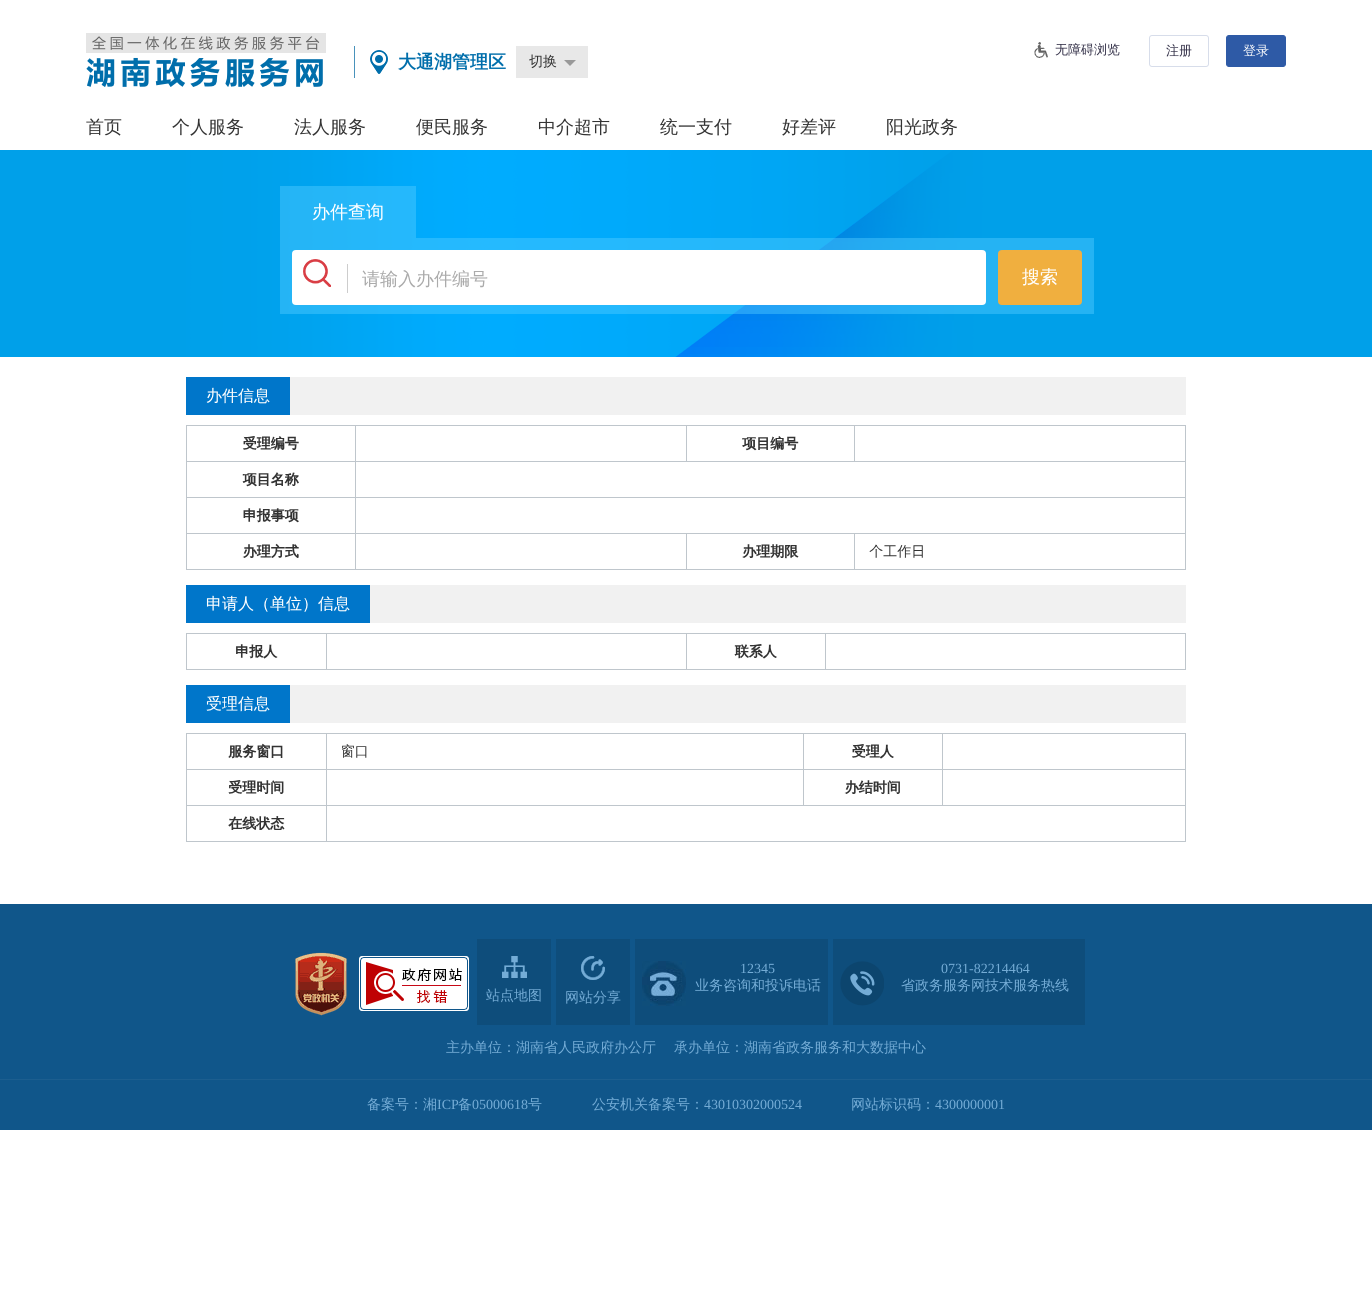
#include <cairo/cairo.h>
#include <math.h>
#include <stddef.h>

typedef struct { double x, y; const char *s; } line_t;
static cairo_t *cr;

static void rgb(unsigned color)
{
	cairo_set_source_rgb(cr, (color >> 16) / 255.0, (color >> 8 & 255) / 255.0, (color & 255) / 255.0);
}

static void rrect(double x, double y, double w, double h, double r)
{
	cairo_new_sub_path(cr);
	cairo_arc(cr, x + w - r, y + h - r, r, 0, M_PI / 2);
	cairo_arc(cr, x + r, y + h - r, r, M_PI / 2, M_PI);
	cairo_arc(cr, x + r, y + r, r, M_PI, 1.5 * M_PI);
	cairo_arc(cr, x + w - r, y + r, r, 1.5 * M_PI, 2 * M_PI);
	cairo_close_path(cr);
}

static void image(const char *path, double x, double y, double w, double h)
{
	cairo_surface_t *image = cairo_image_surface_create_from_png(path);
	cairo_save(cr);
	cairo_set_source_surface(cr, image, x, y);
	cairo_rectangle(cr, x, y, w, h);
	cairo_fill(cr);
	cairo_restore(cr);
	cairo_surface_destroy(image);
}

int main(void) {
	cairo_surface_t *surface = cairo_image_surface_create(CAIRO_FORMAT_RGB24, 1372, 1291);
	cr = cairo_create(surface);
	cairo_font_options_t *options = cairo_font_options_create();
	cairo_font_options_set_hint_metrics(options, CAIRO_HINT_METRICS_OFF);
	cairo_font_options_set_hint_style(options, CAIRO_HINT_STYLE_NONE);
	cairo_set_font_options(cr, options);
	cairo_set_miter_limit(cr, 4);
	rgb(0xffffff);
	cairo_paint(cr);
	image("img/1.png", 1034, 42, 14, 16);
	rrect(1149.5, 35.5, 59, 31, 2.5);
	rgb(0xd7ddea);
	cairo_set_line_width(cr, 1);
	cairo_stroke(cr);
	rgb(0x2e5aa6);
	rrect(1226.5, 35.5, 59, 31, 2.5);
	cairo_fill_preserve(cr);
	cairo_stroke(cr);
	image("img/2.png", 86, 33, 240, 54);
	rgb(0x4992bb);
	cairo_rectangle(cr, 354, 46, 1, 32);
	cairo_fill(cr);
	image("img/3.png", 370, 50, 18, 24);
	rgb(0xe8e8e8);
	cairo_rectangle(cr, 516, 46, 72, 32);
	cairo_fill(cr);
	rgb(0x999999);
	cairo_new_path(cr);
	cairo_move_to(cr, 564, 60);
	cairo_line_to(cr, 576, 60);
	cairo_line_to(cr, 570, 66);
	cairo_close_path(cr);
	cairo_fill(cr);
	image("img/4.png", 0, 150, 1372, 692);
	rgb(0x10568a);
	cairo_rectangle(cr, 0, 904, 1372, 226);
	cairo_fill(cr);
	image("img/5.png", 295, 952, 52, 64);
	image("img/6.png", 359, 956, 110, 55);
	rgb(0x0e4d7b);
	cairo_rectangle(cr, 635, 939, 193, 86);
	cairo_fill(cr);
	image("img/7.png", 642, 961, 44, 45);
	cairo_rectangle(cr, 833, 939, 252, 86);
	cairo_fill(cr);
	image("img/8.png", 840, 961, 44, 45);
	cairo_rectangle(cr, 477, 939, 74, 86);
	cairo_fill(cr);
	image("img/9.png", 502, 956, 25, 22);
	cairo_rectangle(cr, 556, 939, 74, 86);
	cairo_fill(cr);
	image("img/10.png", 581, 956, 24, 24);
	rgb(0x1c5e8f);
	cairo_rectangle(cr, 0, 1079, 1372, 1);
	cairo_fill(cr);
	cairo_select_font_face(cr, "WenQuanYi Zen Hei Medium", CAIRO_FONT_SLANT_NORMAL, CAIRO_FONT_WEIGHT_NORMAL);
	cairo_set_font_size(cr, 13);
	rgb(0x312e46);
	cairo_move_to(cr, 1055, 54);
	cairo_show_text(cr, "无障碍浏览");
	cairo_move_to(cr, 1166, 55);
	cairo_show_text(cr, "注册");
	rgb(0xffffff);
	cairo_move_to(cr, 1243, 55);
	cairo_show_text(cr, "登录");
	cairo_select_font_face(cr, "WenQuanYi Zen Hei", CAIRO_FONT_SLANT_NORMAL, CAIRO_FONT_WEIGHT_BOLD);
	cairo_set_font_size(cr, 18);
	rgb(0x006eab);
	cairo_move_to(cr, 398, 68);
	cairo_show_text(cr, "大通湖管理区");
	cairo_select_font_face(cr, "WenQuanYi Zen Hei Medium", CAIRO_FONT_SLANT_NORMAL, CAIRO_FONT_WEIGHT_NORMAL);
	cairo_set_font_size(cr, 14);
	rgb(0x333333);
	cairo_move_to(cr, 529, 66);
	cairo_show_text(cr, "切换");
	cairo_set_font_size(cr, 18);
	{
		static const line_t items[] = {
			{86, 133, "首页"},
			{172, 133, "个人服务"},
			{294, 133, "法人服务"},
			{416, 133, "便民服务"},
			{538, 133, "中介超市"},
			{660, 133, "统一支付"},
			{782, 133, "好差评"},
			{886, 133, "阳光政务"},
		};
		for (size_t i = 0; i < sizeof items / sizeof *items; i++) {
			cairo_move_to(cr, items[i].x, items[i].y);
			cairo_show_text(cr, items[i].s);
		}
	}
	cairo_select_font_face(cr, "Liberation Serif", CAIRO_FONT_SLANT_NORMAL, CAIRO_FONT_WEIGHT_NORMAL);
	cairo_set_font_size(cr, 14);
	rgb(0x74acd6);
	cairo_move_to(cr, 740, 973);
	cairo_show_text(cr, "12345");
	cairo_select_font_face(cr, "WenQuanYi Zen Hei Medium", CAIRO_FONT_SLANT_NORMAL, CAIRO_FONT_WEIGHT_NORMAL);
	cairo_move_to(cr, 695, 990);
	cairo_show_text(cr, "业务咨询和投诉电话");
	cairo_select_font_face(cr, "Liberation Serif", CAIRO_FONT_SLANT_NORMAL, CAIRO_FONT_WEIGHT_NORMAL);
	cairo_move_to(cr, 941, 973);
	cairo_show_text(cr, "0731-82214464");
	cairo_select_font_face(cr, "WenQuanYi Zen Hei Medium", CAIRO_FONT_SLANT_NORMAL, CAIRO_FONT_WEIGHT_NORMAL);
	{
		static const line_t items[] = {
			{901, 990, "省政务服务网技术服务热线"},
			{486, 1000, "站点地图"},
			{565, 1002, "网站分享"},
			{446, 1052, "主办单位：湖南省人民政府办公厅"},
			{674, 1052, "承办单位：湖南省政务服务和大数据中心"},
			{367, 1109, "备案号：湘"},
		};
		for (size_t i = 0; i < sizeof items / sizeof *items; i++) {
			cairo_move_to(cr, items[i].x, items[i].y);
			cairo_show_text(cr, items[i].s);
		}
	}
	cairo_select_font_face(cr, "Liberation Serif", CAIRO_FONT_SLANT_NORMAL, CAIRO_FONT_WEIGHT_NORMAL);
	cairo_move_to(cr, 437, 1109);
	cairo_show_text(cr, "ICP");
	cairo_select_font_face(cr, "WenQuanYi Zen Hei Medium", CAIRO_FONT_SLANT_NORMAL, CAIRO_FONT_WEIGHT_NORMAL);
	cairo_move_to(cr, 458, 1109);
	cairo_show_text(cr, "备");
	cairo_select_font_face(cr, "Liberation Serif", CAIRO_FONT_SLANT_NORMAL, CAIRO_FONT_WEIGHT_NORMAL);
	cairo_move_to(cr, 472, 1109);
	cairo_show_text(cr, "05000618");
	cairo_select_font_face(cr, "WenQuanYi Zen Hei Medium", CAIRO_FONT_SLANT_NORMAL, CAIRO_FONT_WEIGHT_NORMAL);
	cairo_move_to(cr, 528, 1109);
	cairo_show_text(cr, "号");
	cairo_move_to(cr, 592, 1109);
	cairo_show_text(cr, "公安机关备案号：");
	cairo_select_font_face(cr, "Liberation Serif", CAIRO_FONT_SLANT_NORMAL, CAIRO_FONT_WEIGHT_NORMAL);
	cairo_move_to(cr, 704, 1109);
	cairo_show_text(cr, "43010302000524");
	cairo_select_font_face(cr, "WenQuanYi Zen Hei Medium", CAIRO_FONT_SLANT_NORMAL, CAIRO_FONT_WEIGHT_NORMAL);
	cairo_move_to(cr, 851, 1109);
	cairo_show_text(cr, "网站标识码：");
	cairo_select_font_face(cr, "Liberation Serif", CAIRO_FONT_SLANT_NORMAL, CAIRO_FONT_WEIGHT_NORMAL);
	cairo_move_to(cr, 935, 1109);
	cairo_show_text(cr, "4300000001");
	cairo_surface_write_to_png(surface, "page.png");
	cairo_font_options_destroy(options);
	cairo_destroy(cr);
	cairo_surface_destroy(surface);
	return 0;
}
